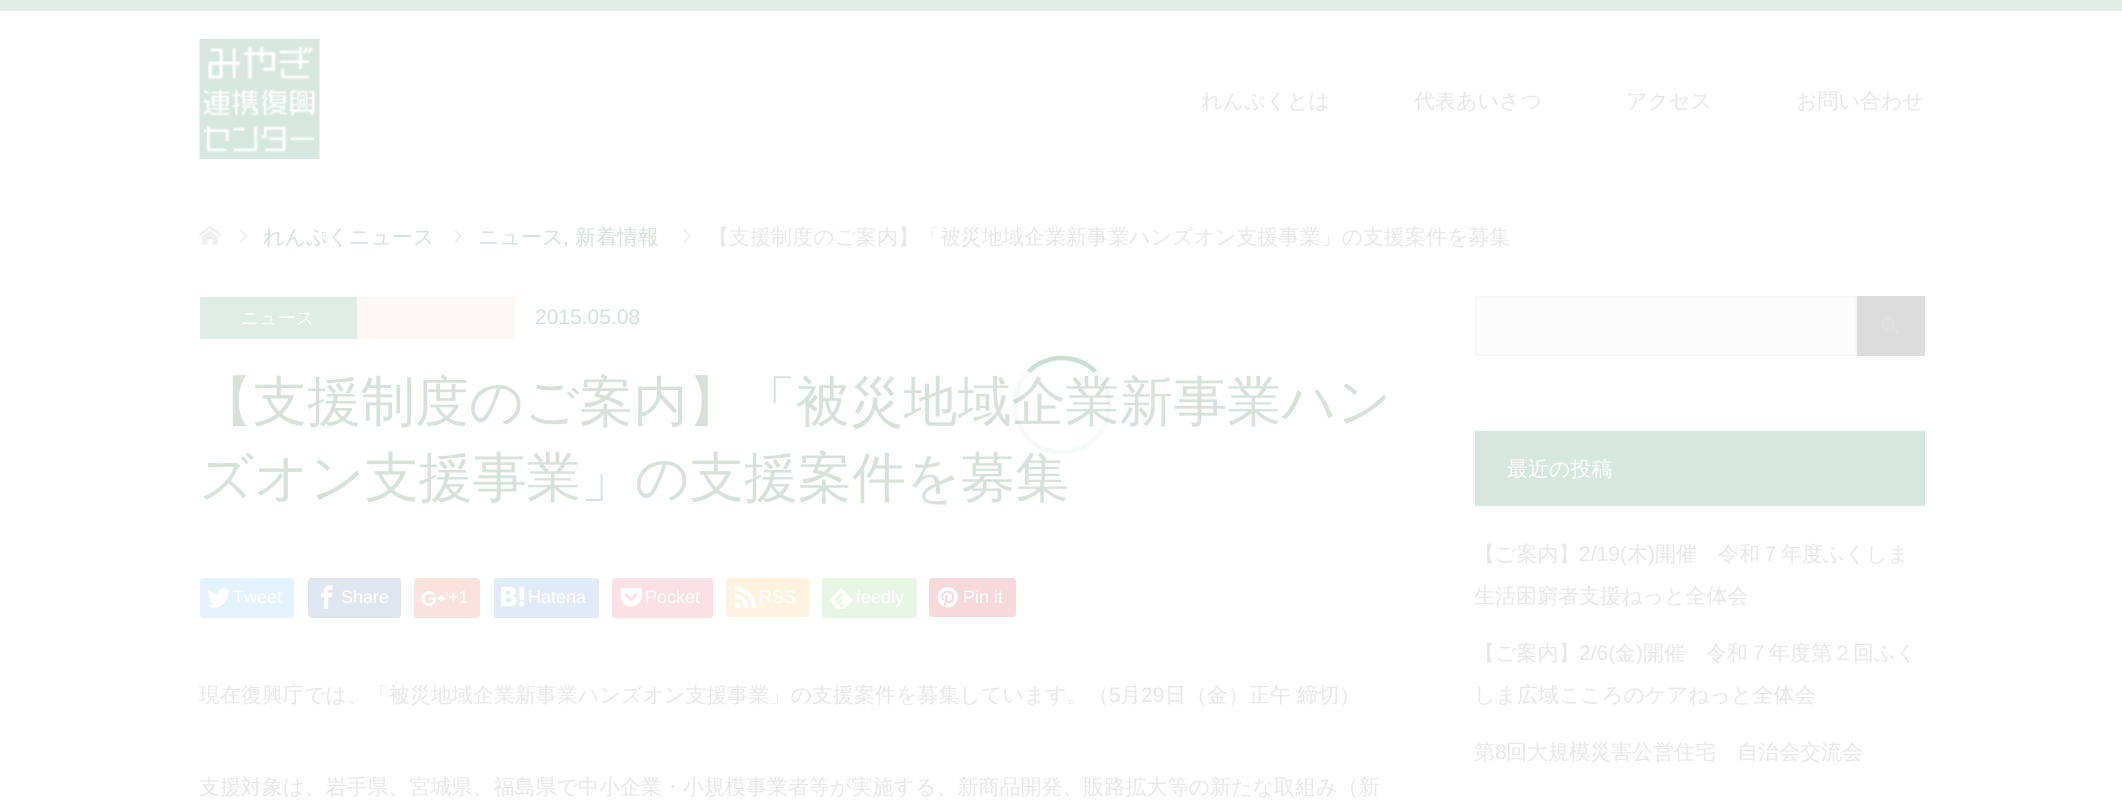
#include <cairo/cairo.h>
#include <math.h>
#include <stddef.h>

typedef struct { double x, y; const char *s; } line_t;
static cairo_t *cr;

static void rgb(unsigned color)
{
	cairo_set_source_rgb(cr, (color >> 16) / 255.0, (color >> 8 & 255) / 255.0, (color & 255) / 255.0);
}

static void rrect(double x, double y, double w, double h, double r)
{
	cairo_new_sub_path(cr);
	cairo_arc(cr, x + w - r, y + h - r, r, 0, M_PI / 2);
	cairo_arc(cr, x + r, y + h - r, r, M_PI / 2, M_PI);
	cairo_arc(cr, x + r, y + r, r, M_PI, 1.5 * M_PI);
	cairo_arc(cr, x + w - r, y + r, r, 1.5 * M_PI, 2 * M_PI);
	cairo_close_path(cr);
}

static void image(const char *path, double x, double y, double w, double h)
{
	cairo_surface_t *image = cairo_image_surface_create_from_png(path);
	cairo_save(cr);
	cairo_set_source_surface(cr, image, x, y);
	cairo_rectangle(cr, x, y, w, h);
	cairo_fill(cr);
	cairo_restore(cr);
	cairo_surface_destroy(image);
}

int main(void) {
	cairo_surface_t *surface = cairo_image_surface_create(CAIRO_FORMAT_RGB24, 2122, 808);
	cr = cairo_create(surface);
	cairo_font_options_t *options = cairo_font_options_create();
	cairo_font_options_set_hint_metrics(options, CAIRO_HINT_METRICS_OFF);
	cairo_font_options_set_hint_style(options, CAIRO_HINT_STYLE_NONE);
	cairo_set_font_options(cr, options);
	cairo_set_miter_limit(cr, 4);
	rgb(0xffffff);
	cairo_paint(cr);
	rgb(0xdeece5);
	cairo_rectangle(cr, 0, 0, 2122, 11);
	cairo_fill(cr);
	image("img/1.png", 199, 39, 121, 120);
	image("img/2.png", 199, 225, 22, 20);
	image("img/3.png", 240, 229, 7, 14);
	image("img/4.png", 454, 229, 8, 14);
	image("img/3.png", 684, 229, 7, 14);
	cairo_rectangle(cr, 200, 297, 157, 42);
	cairo_fill(cr);
	rgb(0xfbf7f5);
	cairo_rectangle(cr, 357, 297, 158, 42);
	cairo_fill(cr);
	rgb(0xe4f2fc);
	rrect(200, 578, 94, 40, 3);
	cairo_fill(cr);
	image("img/5.png", 207, 588, 24, 20);
	rgb(0xdfe6ef);
	rrect(308, 578, 93, 40, 3);
	cairo_fill(cr);
	image("img/6.png", 320, 585, 13, 24);
	rgb(0xfae2df);
	rrect(414, 578, 66, 40, 3);
	cairo_fill(cr);
	image("img/7.png", 421, 591, 24, 15);
	rgb(0xe0eaf8);
	rrect(494, 578, 105, 40, 3);
	cairo_fill(cr);
	image("img/8.png", 501, 586, 24, 21);
	rgb(0xfce0e4);
	rrect(612, 578, 101, 40, 3);
	cairo_fill(cr);
	image("img/9.png", 620, 587, 22, 20);
	rgb(0xfff3e0);
	rrect(726, 578, 83, 39, 3);
	cairo_fill(cr);
	image("img/10.png", 734, 586, 23, 23);
	rgb(0xe7f6e4);
	rrect(822, 578, 95, 40, 3);
	cairo_fill(cr);
	image("img/11.png", 829, 588, 24, 21);
	rgb(0xf8d9db);
	rrect(929, 578, 87, 39, 3);
	cairo_fill(cr);
	image("img/12.png", 937, 587, 21, 21);
	rgb(0xfcfcfc);
	cairo_rectangle(cr, 1476, 297, 380, 58);
	cairo_fill_preserve(cr);
	rgb(0xf7f7f7);
	cairo_stroke(cr);
	rgb(0xdcdcdc);
	cairo_rectangle(cr, 1857, 296, 68, 60);
	cairo_fill(cr);
	image("img/13.png", 1881, 316, 18, 19);
	rgb(0xd6e7df);
	cairo_rectangle(cr, 1475, 431, 450, 75);
	cairo_fill(cr);
	cairo_select_font_face(cr, "WenQuanYi Zen Hei Medium", CAIRO_FONT_SLANT_NORMAL, CAIRO_FONT_WEIGHT_NORMAL);
	cairo_set_font_size(cr, 21);
	rgb(0xe7e7e7);
	{
		static const line_t items[] = {
			{1201, 108, "れんぷくとは"},
			{1414, 108, "代表あいさつ"},
			{1626, 108, "アクセス"},
			{1796, 108, "お問い合わせ"},
		};
		for (size_t i = 0; i < sizeof items / sizeof *items; i++) {
			cairo_move_to(cr, items[i].x, items[i].y);
			cairo_show_text(cr, items[i].s);
		}
	}
	rgb(0xd6e1da);
	cairo_move_to(cr, 263, 244);
	cairo_show_text(cr, "れんぷくニュース");
	cairo_move_to(cr, 478, 244);
	cairo_show_text(cr, "ニュース");
	cairo_select_font_face(cr, "Liberation Sans", CAIRO_FONT_SLANT_NORMAL, CAIRO_FONT_WEIGHT_NORMAL);
	cairo_move_to(cr, 563, 244);
	cairo_show_text(cr, ",");
	cairo_select_font_face(cr, "WenQuanYi Zen Hei Medium", CAIRO_FONT_SLANT_NORMAL, CAIRO_FONT_WEIGHT_NORMAL);
	cairo_move_to(cr, 575, 244);
	cairo_show_text(cr, "新着情報");
	rgb(0xe7e7e7);
	cairo_move_to(cr, 708, 244);
	cairo_show_text(cr, "【支援制度のご案内】「被災地域企業新事業ハンズオン支援事業」の支援案件を募集");
	cairo_set_font_size(cr, 18);
	rgb(0xffffff);
	cairo_move_to(cr, 241, 324);
	cairo_show_text(cr, "ニュース");
	cairo_select_font_face(cr, "Liberation Sans", CAIRO_FONT_SLANT_NORMAL, CAIRO_FONT_WEIGHT_NORMAL);
	cairo_set_font_size(cr, 21);
	rgb(0xd6e1da);
	cairo_move_to(cr, 535, 324);
	cairo_show_text(cr, "2015.05.08");
	cairo_select_font_face(cr, "WenQuanYi Zen Hei Medium", CAIRO_FONT_SLANT_NORMAL, CAIRO_FONT_WEIGHT_NORMAL);
	cairo_set_font_size(cr, 54);
	cairo_move_to(cr, 199, 420);
	cairo_show_text(cr, "【支援制度のご案内】「被災地域企業新事業ハン");
	cairo_move_to(cr, 199, 496);
	cairo_show_text(cr, "ズオン支援事業」の支援案件を募集");
	cairo_select_font_face(cr, "Liberation Sans", CAIRO_FONT_SLANT_NORMAL, CAIRO_FONT_WEIGHT_NORMAL);
	cairo_set_font_size(cr, 18);
	rgb(0xffffff);
	{
		static const line_t items[] = {
			{233, 603, "Tweet"},
			{341, 603, "Share"},
			{448, 603, "+1"},
			{528, 603, "Hatena"},
			{645, 603, "Pocket"},
			{759, 603, "RSS"},
			{856, 603, "feedly"},
			{963, 603, "Pin it"},
		};
		for (size_t i = 0; i < sizeof items / sizeof *items; i++) {
			cairo_move_to(cr, items[i].x, items[i].y);
			cairo_show_text(cr, items[i].s);
		}
	}
	cairo_select_font_face(cr, "WenQuanYi Zen Hei Medium", CAIRO_FONT_SLANT_NORMAL, CAIRO_FONT_WEIGHT_NORMAL);
	cairo_set_font_size(cr, 21);
	rgb(0xe7e7e7);
	cairo_move_to(cr, 199, 702);
	cairo_show_text(cr, "現在復興庁では、「被災地域企業新事業ハンズオン支援事業」の支援案件を募集しています。（");
	cairo_select_font_face(cr, "Liberation Sans", CAIRO_FONT_SLANT_NORMAL, CAIRO_FONT_WEIGHT_NORMAL);
	cairo_move_to(cr, 1109, 702);
	cairo_show_text(cr, "5");
	cairo_select_font_face(cr, "WenQuanYi Zen Hei Medium", CAIRO_FONT_SLANT_NORMAL, CAIRO_FONT_WEIGHT_NORMAL);
	cairo_move_to(cr, 1120, 702);
	cairo_show_text(cr, "月");
	cairo_select_font_face(cr, "Liberation Sans", CAIRO_FONT_SLANT_NORMAL, CAIRO_FONT_WEIGHT_NORMAL);
	cairo_move_to(cr, 1141, 702);
	cairo_show_text(cr, "29");
	cairo_select_font_face(cr, "WenQuanYi Zen Hei Medium", CAIRO_FONT_SLANT_NORMAL, CAIRO_FONT_WEIGHT_NORMAL);
	cairo_move_to(cr, 1165, 702);
	cairo_show_text(cr, "日（金）正午 締切）");
	cairo_move_to(cr, 199, 794);
	cairo_show_text(cr, "支援対象は、岩手県、宮城県、福島県で中小企業・小規模事業者等が実施する、新商品開発、販路拡大等の新たな取組み（新");
	rgb(0xffffff);
	cairo_move_to(cr, 1507, 476);
	cairo_show_text(cr, "最近の投稿");
	rgb(0xe7e7e7);
	cairo_move_to(cr, 1474, 561);
	cairo_show_text(cr, "【ご案内】");
	cairo_select_font_face(cr, "Liberation Sans", CAIRO_FONT_SLANT_NORMAL, CAIRO_FONT_WEIGHT_NORMAL);
	cairo_move_to(cr, 1579, 561);
	cairo_show_text(cr, "2/19(");
	cairo_select_font_face(cr, "WenQuanYi Zen Hei Medium", CAIRO_FONT_SLANT_NORMAL, CAIRO_FONT_WEIGHT_NORMAL);
	cairo_move_to(cr, 1627, 561);
	cairo_show_text(cr, "木");
	cairo_select_font_face(cr, "Liberation Sans", CAIRO_FONT_SLANT_NORMAL, CAIRO_FONT_WEIGHT_NORMAL);
	cairo_move_to(cr, 1648, 561);
	cairo_show_text(cr, ")");
	cairo_select_font_face(cr, "WenQuanYi Zen Hei Medium", CAIRO_FONT_SLANT_NORMAL, CAIRO_FONT_WEIGHT_NORMAL);
	{
		static const line_t items[] = {
			{1655, 561, "開催　令和７年度ふくしま"},
			{1474, 603, "生活困窮者支援ねっと全体会"},
			{1474, 660, "【ご案内】"},
		};
		for (size_t i = 0; i < sizeof items / sizeof *items; i++) {
			cairo_move_to(cr, items[i].x, items[i].y);
			cairo_show_text(cr, items[i].s);
		}
	}
	cairo_select_font_face(cr, "Liberation Sans", CAIRO_FONT_SLANT_NORMAL, CAIRO_FONT_WEIGHT_NORMAL);
	cairo_move_to(cr, 1579, 660);
	cairo_show_text(cr, "2/6(");
	cairo_select_font_face(cr, "WenQuanYi Zen Hei Medium", CAIRO_FONT_SLANT_NORMAL, CAIRO_FONT_WEIGHT_NORMAL);
	cairo_move_to(cr, 1615, 660);
	cairo_show_text(cr, "金");
	cairo_select_font_face(cr, "Liberation Sans", CAIRO_FONT_SLANT_NORMAL, CAIRO_FONT_WEIGHT_NORMAL);
	cairo_move_to(cr, 1636, 660);
	cairo_show_text(cr, ")");
	cairo_select_font_face(cr, "WenQuanYi Zen Hei Medium", CAIRO_FONT_SLANT_NORMAL, CAIRO_FONT_WEIGHT_NORMAL);
	{
		static const line_t items[] = {
			{1643, 660, "開催　令和７年度第２回ふく"},
			{1474, 702, "しま広域こころのケアねっと全体会"},
			{1474, 759, "第"},
		};
		for (size_t i = 0; i < sizeof items / sizeof *items; i++) {
			cairo_move_to(cr, items[i].x, items[i].y);
			cairo_show_text(cr, items[i].s);
		}
	}
	cairo_select_font_face(cr, "Liberation Sans", CAIRO_FONT_SLANT_NORMAL, CAIRO_FONT_WEIGHT_NORMAL);
	cairo_move_to(cr, 1495, 759);
	cairo_show_text(cr, "8");
	cairo_select_font_face(cr, "WenQuanYi Zen Hei Medium", CAIRO_FONT_SLANT_NORMAL, CAIRO_FONT_WEIGHT_NORMAL);
	cairo_move_to(cr, 1506, 759);
	cairo_show_text(cr, "回大規模災害公営住宅　自治会交流会");
	cairo_new_path(cr);
	cairo_move_to(cr, 1028.5, 371.5);
	cairo_curve_to(cr, 1047, 353.5, 1077, 353.5, 1095.5, 371.5);
	rgb(0xc8dfd3);
	cairo_set_line_width(cr, 4.5);
	cairo_stroke(cr);
	cairo_new_path(cr);
	cairo_move_to(cr, 1095.5, 371.5);
	cairo_curve_to(cr, 1104, 380.5, 1109, 392.5, 1109, 405);
	cairo_curve_to(cr, 1109, 447, 1058, 468, 1028.5, 438.5);
	cairo_curve_to(cr, 1022, 432, 1017.5, 423.5, 1015.5, 414.5);
	cairo_curve_to(cr, 1012.5, 399, 1017.5, 382.5, 1028.5, 371.5);
	cairo_set_source_rgba(cr, 0, 0.412, 0.204, 0.04);
	cairo_stroke(cr);
	cairo_surface_write_to_png(surface, "page.png");
	cairo_font_options_destroy(options);
	cairo_destroy(cr);
	cairo_surface_destroy(surface);
	return 0;
}
